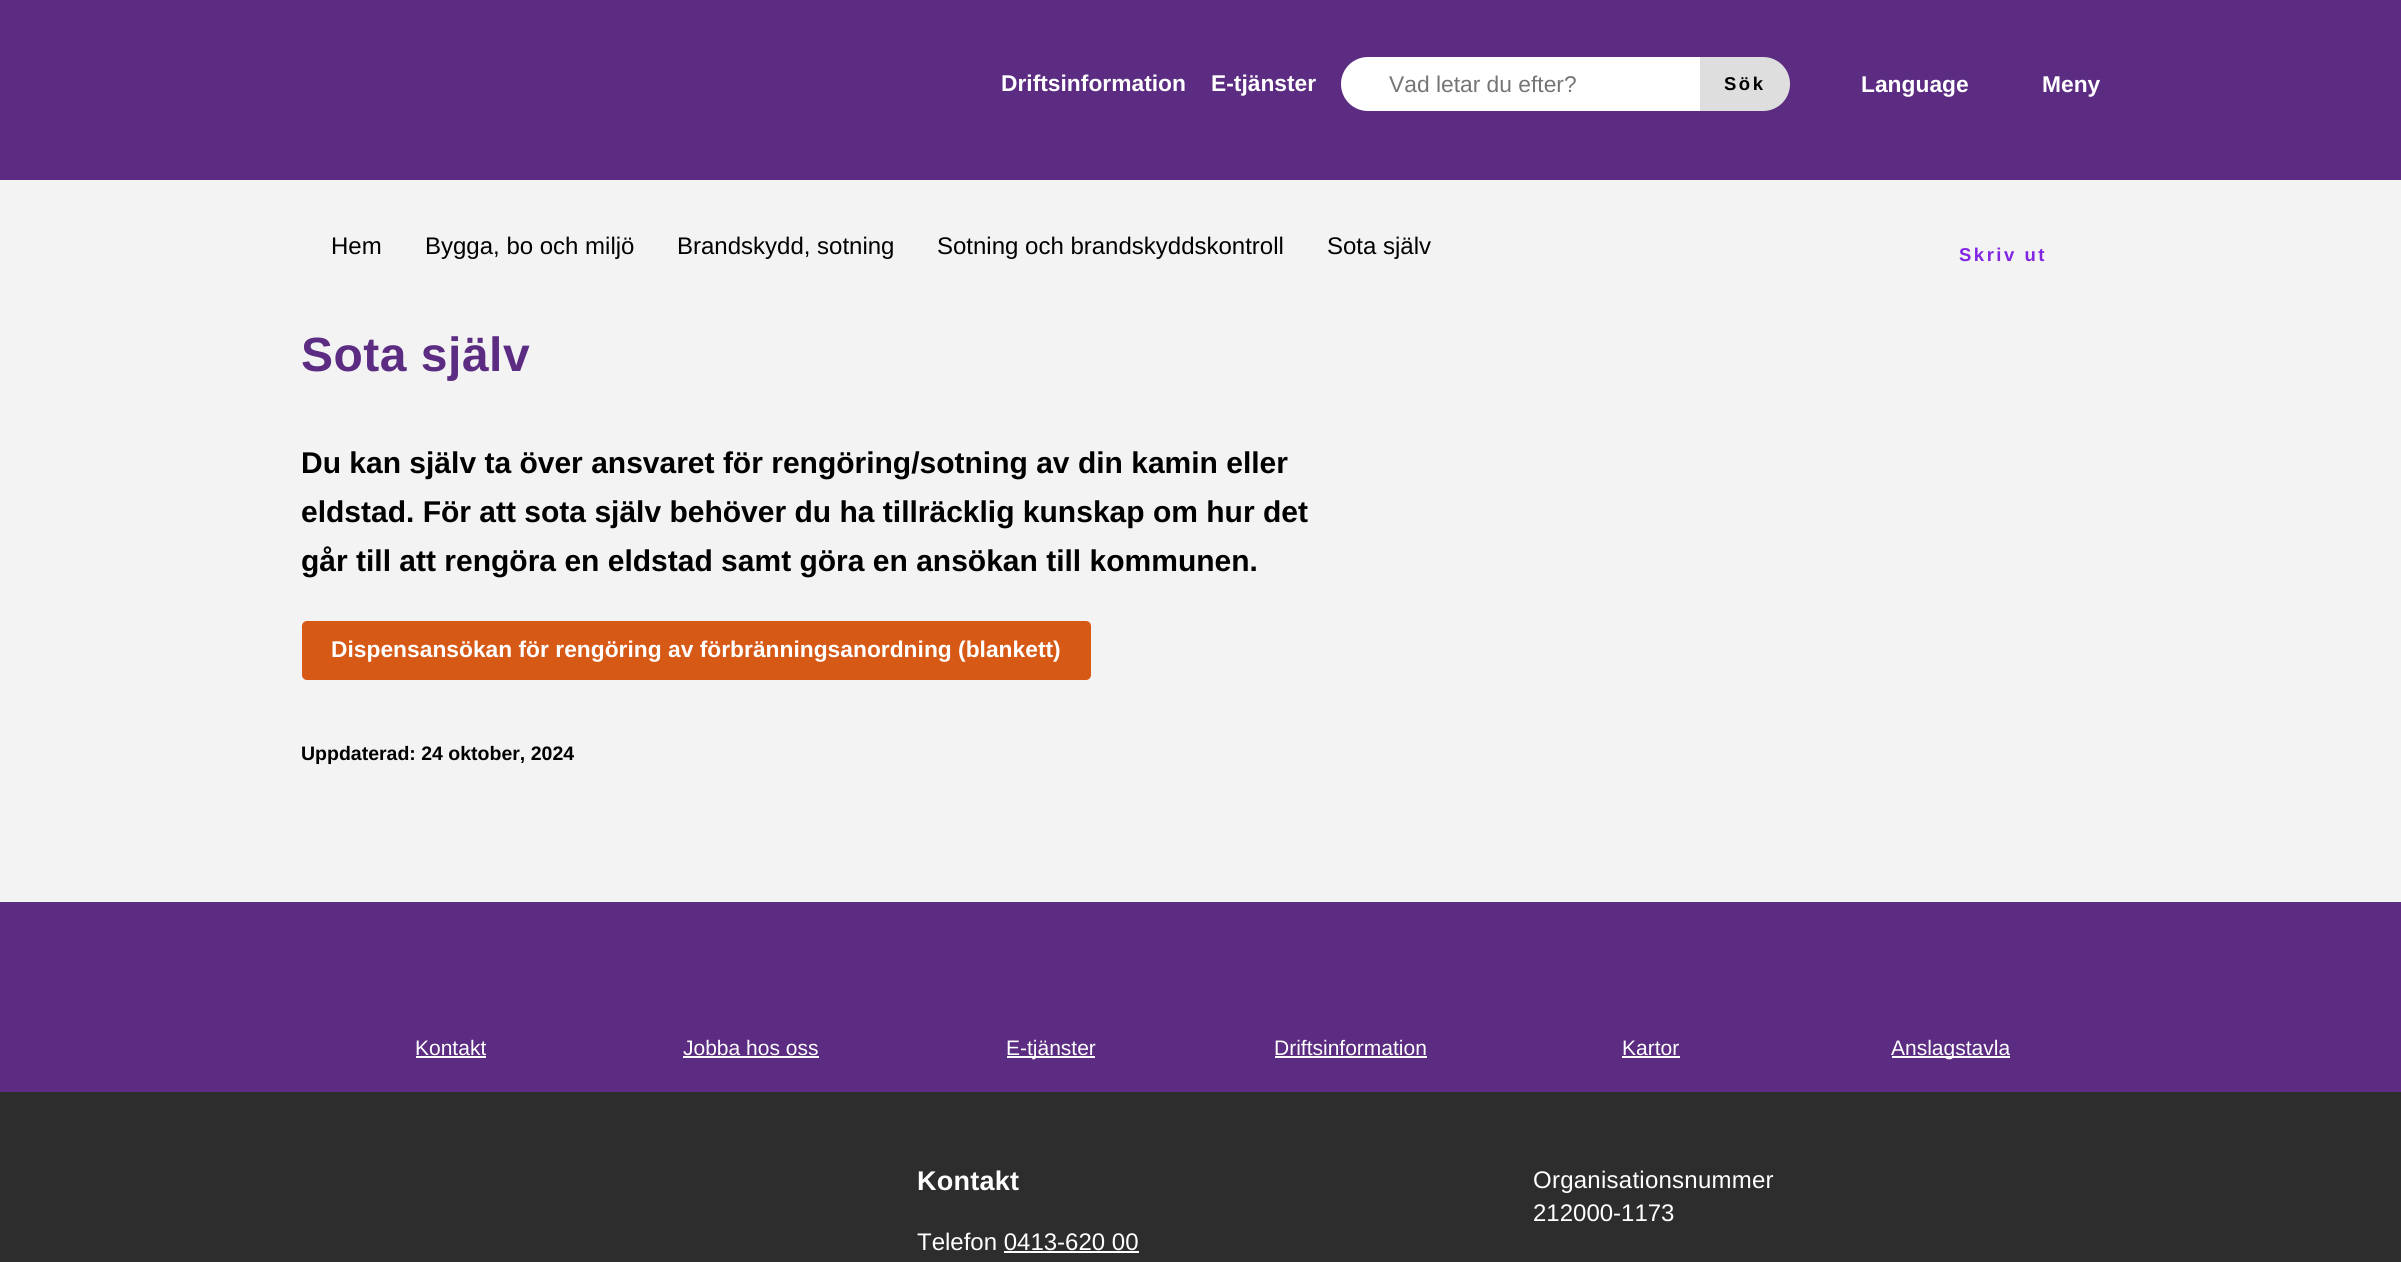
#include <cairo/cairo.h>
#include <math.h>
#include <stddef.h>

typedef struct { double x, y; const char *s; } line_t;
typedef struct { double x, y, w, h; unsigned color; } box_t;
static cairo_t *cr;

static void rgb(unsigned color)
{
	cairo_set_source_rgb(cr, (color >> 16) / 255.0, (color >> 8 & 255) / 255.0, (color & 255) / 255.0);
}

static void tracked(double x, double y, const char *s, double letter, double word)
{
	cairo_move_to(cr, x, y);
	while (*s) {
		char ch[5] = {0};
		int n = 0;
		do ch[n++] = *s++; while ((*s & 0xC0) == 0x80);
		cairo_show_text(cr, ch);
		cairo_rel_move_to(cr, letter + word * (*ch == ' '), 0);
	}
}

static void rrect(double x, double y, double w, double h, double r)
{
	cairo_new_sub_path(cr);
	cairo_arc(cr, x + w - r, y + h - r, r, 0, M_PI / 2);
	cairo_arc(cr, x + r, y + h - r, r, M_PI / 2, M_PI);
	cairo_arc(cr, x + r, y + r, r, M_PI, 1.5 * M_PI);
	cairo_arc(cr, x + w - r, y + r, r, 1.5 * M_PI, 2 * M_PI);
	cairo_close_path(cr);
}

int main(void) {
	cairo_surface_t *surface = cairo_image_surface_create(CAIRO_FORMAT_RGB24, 2401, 1262);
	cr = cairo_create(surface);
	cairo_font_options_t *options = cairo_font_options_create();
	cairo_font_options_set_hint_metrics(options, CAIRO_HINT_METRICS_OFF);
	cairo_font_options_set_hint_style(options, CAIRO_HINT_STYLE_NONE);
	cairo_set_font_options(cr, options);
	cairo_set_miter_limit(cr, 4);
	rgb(0xf3f3f3);
	cairo_paint(cr);
	rgb(0x5b2c82);
	cairo_rectangle(cr, 0, 0, 2401, 180);
	cairo_fill(cr);
	rgb(0xffffff);
	cairo_new_path(cr);
	cairo_move_to(cr, 1368, 57);
	cairo_line_to(cr, 1700, 57);
	cairo_line_to(cr, 1700, 111);
	cairo_line_to(cr, 1368, 111);
	cairo_curve_to(cr, 1353, 111, 1341, 99, 1341, 84);
	cairo_curve_to(cr, 1341, 69, 1353, 57, 1368, 57);
	cairo_close_path(cr);
	cairo_fill(cr);
	rgb(0xdedede);
	cairo_new_path(cr);
	cairo_move_to(cr, 1700, 57);
	cairo_line_to(cr, 1763, 57);
	cairo_curve_to(cr, 1778, 57, 1790, 69, 1790, 84);
	cairo_curve_to(cr, 1790, 99, 1778, 111, 1763, 111);
	cairo_line_to(cr, 1700, 111);
	cairo_close_path(cr);
	cairo_fill(cr);
	rgb(0xd75916);
	rrect(302, 621, 789, 59, 5);
	cairo_fill(cr);
	{
		static const box_t items[] = {
			{0, 902, 2401, 190, 0x5b2c82},
			{416, 1056, 70, 2, 0xffffff},
			{683, 1056, 136, 2, 0xffffff},
			{1007, 1056, 88, 2, 0xffffff},
			{1275, 1056, 152, 2, 0xffffff},
			{1622, 1056, 58, 2, 0xffffff},
			{1892, 1056, 118, 2, 0xffffff},
			{0, 1092, 2401, 170, 0x2d2d2d},
			{1004, 1251, 135, 2, 0xffffff},
		};
		for (size_t i = 0; i < sizeof items / sizeof *items; i++) {
			rgb(items[i].color);
			cairo_rectangle(cr, items[i].x, items[i].y, items[i].w, items[i].h);
			cairo_fill(cr);
		}
	}
	cairo_select_font_face(cr, "Liberation Sans", CAIRO_FONT_SLANT_NORMAL, CAIRO_FONT_WEIGHT_BOLD);
	cairo_set_font_size(cr, 22.8);
	cairo_move_to(cr, 1001, 91);
	cairo_show_text(cr, "Driftsinformation");
	cairo_move_to(cr, 1211, 91);
	cairo_show_text(cr, "E-tjänster");
	cairo_select_font_face(cr, "Liberation Sans", CAIRO_FONT_SLANT_NORMAL, CAIRO_FONT_WEIGHT_NORMAL);
	rgb(0x757575);
	cairo_move_to(cr, 1389, 92);
	cairo_show_text(cr, "Vad letar du efter?");
	cairo_select_font_face(cr, "Liberation Sans", CAIRO_FONT_SLANT_NORMAL, CAIRO_FONT_WEIGHT_BOLD);
	cairo_set_font_size(cr, 18.5);
	rgb(0x000000);
	tracked(1724, 90, "Sök", 2.5, 0);
	cairo_set_font_size(cr, 22.8);
	rgb(0xffffff);
	cairo_move_to(cr, 1861, 92);
	cairo_show_text(cr, "Language");
	cairo_move_to(cr, 2042, 92);
	cairo_show_text(cr, "Meny");
	cairo_select_font_face(cr, "Liberation Sans", CAIRO_FONT_SLANT_NORMAL, CAIRO_FONT_WEIGHT_NORMAL);
	cairo_set_font_size(cr, 24);
	rgb(0x000000);
	{
		static const line_t items[] = {
			{331, 254, "Hem"},
			{425, 254, "Bygga, bo och miljö"},
			{677, 254, "Brandskydd, sotning"},
			{937, 254, "Sotning och brandskyddskontroll"},
			{1327, 254, "Sota själv"},
		};
		for (size_t i = 0; i < sizeof items / sizeof *items; i++) {
			cairo_move_to(cr, items[i].x, items[i].y);
			cairo_show_text(cr, items[i].s);
		}
	}
	cairo_select_font_face(cr, "Liberation Sans", CAIRO_FONT_SLANT_NORMAL, CAIRO_FONT_WEIGHT_BOLD);
	cairo_set_font_size(cr, 18.5);
	rgb(0x8224e3);
	tracked(1959, 261, "Skriv ut", 2.5, 0);
	cairo_set_font_size(cr, 48);
	rgb(0x5b2c82);
	tracked(301, 371, "Sota själv", 0.5, 0);
	cairo_set_font_size(cr, 30);
	rgb(0x000000);
	{
		static const line_t items[] = {
			{301, 473, "Du kan själv ta över ansvaret för rengöring/sotning av din kamin eller"},
			{301, 522, "eldstad. För att sota själv behöver du ha tillräcklig kunskap om hur det"},
			{301, 571, "går till att rengöra en eldstad samt göra en ansökan till kommunen."},
		};
		for (size_t i = 0; i < sizeof items / sizeof *items; i++) {
			cairo_move_to(cr, items[i].x, items[i].y);
			cairo_show_text(cr, items[i].s);
		}
	}
	cairo_set_font_size(cr, 22.8);
	rgb(0xffffff);
	cairo_move_to(cr, 331, 657);
	cairo_show_text(cr, "Dispensansökan för rengöring av förbränningsanordning (blankett)");
	cairo_set_font_size(cr, 19.5);
	rgb(0x000000);
	cairo_move_to(cr, 301, 760);
	cairo_show_text(cr, "Uppdaterad: 24 oktober, 2024");
	cairo_select_font_face(cr, "Liberation Sans", CAIRO_FONT_SLANT_NORMAL, CAIRO_FONT_WEIGHT_NORMAL);
	cairo_set_font_size(cr, 21);
	rgb(0xffffff);
	{
		static const line_t items[] = {
			{415, 1055, "Kontakt"},
			{683, 1055, "Jobba hos oss"},
			{1006, 1055, "E-tjänster"},
			{1274, 1055, "Driftsinformation"},
			{1622, 1055, "Kartor"},
			{1891, 1055, "Anslagstavla"},
		};
		for (size_t i = 0; i < sizeof items / sizeof *items; i++) {
			cairo_move_to(cr, items[i].x, items[i].y);
			cairo_show_text(cr, items[i].s);
		}
	}
	cairo_select_font_face(cr, "Liberation Sans", CAIRO_FONT_SLANT_NORMAL, CAIRO_FONT_WEIGHT_BOLD);
	cairo_set_font_size(cr, 27);
	tracked(917, 1190, "Kontakt", 0.25, 0);
	cairo_select_font_face(cr, "Liberation Sans", CAIRO_FONT_SLANT_NORMAL, CAIRO_FONT_WEIGHT_NORMAL);
	cairo_set_font_size(cr, 24);
	cairo_move_to(cr, 917, 1250);
	cairo_show_text(cr, "Telefon 0413-620 00");
	tracked(1533, 1188, "Organisationsnummer", 0.25, 0);
	cairo_move_to(cr, 1533, 1221);
	cairo_show_text(cr, "212000-1173");
	cairo_surface_write_to_png(surface, "page.png");
	cairo_font_options_destroy(options);
	cairo_destroy(cr);
	cairo_surface_destroy(surface);
	return 0;
}
